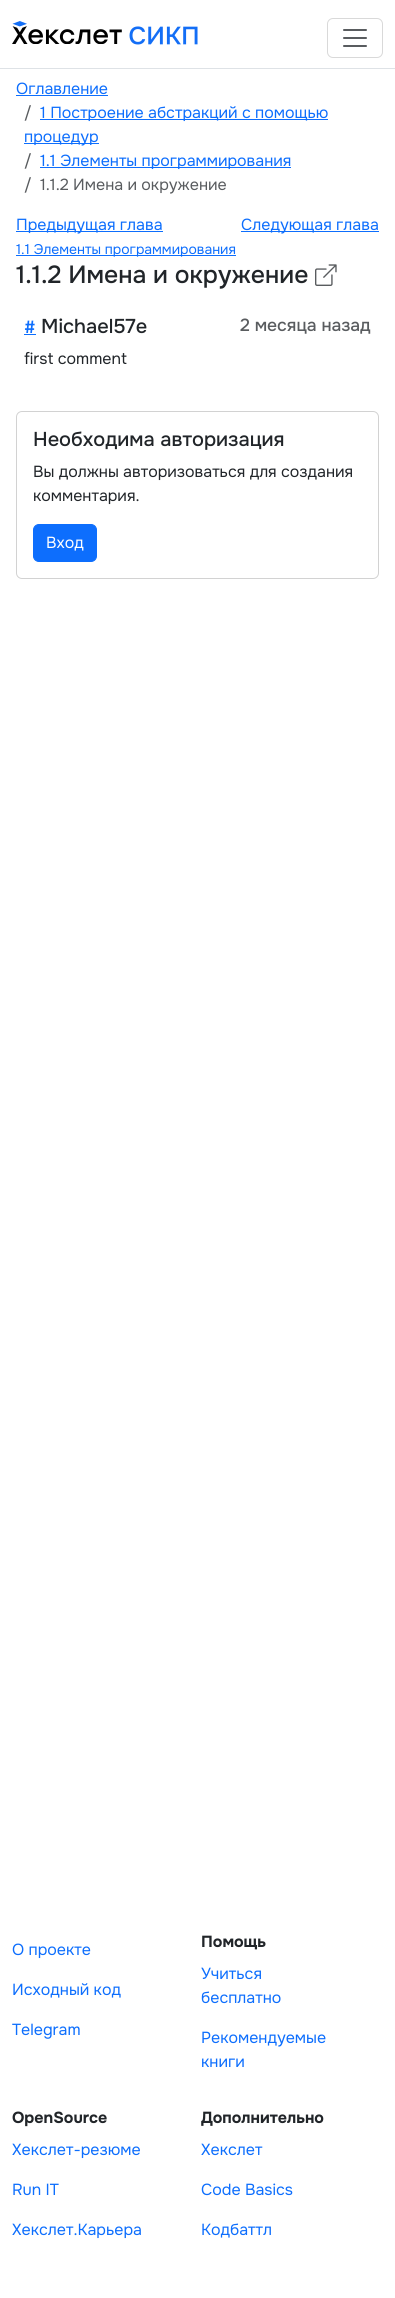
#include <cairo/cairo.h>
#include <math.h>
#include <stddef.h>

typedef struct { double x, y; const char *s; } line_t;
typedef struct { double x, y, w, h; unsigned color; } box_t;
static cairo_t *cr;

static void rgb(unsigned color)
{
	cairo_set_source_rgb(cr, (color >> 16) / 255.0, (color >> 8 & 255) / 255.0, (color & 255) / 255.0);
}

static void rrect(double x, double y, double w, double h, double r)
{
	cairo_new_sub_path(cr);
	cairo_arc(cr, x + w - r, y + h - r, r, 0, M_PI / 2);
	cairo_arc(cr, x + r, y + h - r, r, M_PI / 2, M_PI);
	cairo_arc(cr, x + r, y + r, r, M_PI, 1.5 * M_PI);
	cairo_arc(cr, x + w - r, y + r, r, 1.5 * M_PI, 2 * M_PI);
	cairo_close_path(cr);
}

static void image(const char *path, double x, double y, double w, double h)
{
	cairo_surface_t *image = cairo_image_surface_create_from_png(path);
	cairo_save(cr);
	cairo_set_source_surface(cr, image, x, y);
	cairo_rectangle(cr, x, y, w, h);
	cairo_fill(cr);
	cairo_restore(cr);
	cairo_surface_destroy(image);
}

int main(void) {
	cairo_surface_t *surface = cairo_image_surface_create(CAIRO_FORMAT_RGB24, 395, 2298);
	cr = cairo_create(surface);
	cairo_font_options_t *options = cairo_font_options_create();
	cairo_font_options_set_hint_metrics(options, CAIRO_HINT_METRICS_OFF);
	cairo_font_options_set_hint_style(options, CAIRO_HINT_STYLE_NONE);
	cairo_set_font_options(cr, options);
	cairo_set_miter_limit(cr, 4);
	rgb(0xffffff);
	cairo_paint(cr);
	rgb(0xdee2e6);
	cairo_rectangle(cr, 0, 68, 395, 1);
	cairo_fill(cr);
	image("img/1.png", 12, 21, 186, 24);
	rrect(327.5, 18.5, 55, 39, 5.5);
	rgb(0xd9d9d9);
	cairo_set_line_width(cr, 1);
	cairo_stroke(cr);
	image("img/2.png", 343, 29, 24, 18);
	{
		static const box_t items[] = {
			{16, 95, 92, 1, 0x0d6efd},
			{40, 119, 288, 1, 0x0d6efd},
			{24, 143, 75, 1, 0x0d6efd},
			{40, 167, 251, 1, 0x0d6efd},
			{16, 231, 147, 1, 0x0d6efd},
			{241, 231, 138, 1, 0x0d6efd},
			{16, 255, 220, 1, 0x0d6efd},
		};
		for (size_t i = 0; i < sizeof items / sizeof *items; i++) {
			rgb(items[i].color);
			cairo_rectangle(cr, items[i].x, items[i].y, items[i].w, items[i].h);
			cairo_fill(cr);
		}
	}
	image("img/3.png", 315, 264, 22, 22);
	cairo_rectangle(cr, 24, 334, 12, 1);
	cairo_fill(cr);
	rrect(16.5, 411.5, 362, 167, 5.5);
	rgb(0xd2d2d2);
	cairo_stroke(cr);
	rgb(0x0d6efd);
	rrect(33.5, 524.5, 63, 37, 5.5);
	cairo_fill_preserve(cr);
	cairo_stroke(cr);
	cairo_select_font_face(cr, "Onest", CAIRO_FONT_SLANT_NORMAL, CAIRO_FONT_WEIGHT_NORMAL);
	cairo_set_font_size(cr, 16);
	cairo_move_to(cr, 16, 94);
	cairo_show_text(cr, "Оглавление");
	rgb(0x595c5f);
	cairo_move_to(cr, 24, 118);
	cairo_show_text(cr, "/");
	rgb(0x0d6efd);
	cairo_move_to(cr, 40, 118);
	cairo_show_text(cr, "1 Построение абстракций с помощью");
	cairo_move_to(cr, 24, 142);
	cairo_show_text(cr, "процедур");
	rgb(0x595c5f);
	cairo_move_to(cr, 24, 166);
	cairo_show_text(cr, "/");
	rgb(0x0d6efd);
	cairo_move_to(cr, 40, 166);
	cairo_show_text(cr, "1.1 Элементы программирования");
	rgb(0x595c5f);
	cairo_move_to(cr, 24, 190);
	cairo_show_text(cr, "/");
	cairo_move_to(cr, 40, 190);
	cairo_show_text(cr, "1.1.2 Имена и окружение");
	rgb(0x0d6efd);
	cairo_move_to(cr, 16, 230);
	cairo_show_text(cr, "Предыдущая глава");
	cairo_move_to(cr, 241, 230);
	cairo_show_text(cr, "Следующая глава");
	cairo_set_font_size(cr, 14);
	cairo_move_to(cr, 16, 254);
	cairo_show_text(cr, "1.1 Элементы программирования");
	cairo_select_font_face(cr, "Onest Medium", CAIRO_FONT_SLANT_NORMAL, CAIRO_FONT_WEIGHT_NORMAL);
	cairo_set_font_size(cr, 24.75);
	rgb(0x212529);
	cairo_move_to(cr, 16, 283);
	cairo_show_text(cr, "1.1.2 Имена и окружение");
	cairo_set_font_size(cr, 17.5);
	rgb(0x0d6efd);
	cairo_move_to(cr, 24, 333);
	cairo_show_text(cr, "#");
	cairo_set_font_size(cr, 20);
	rgb(0x212529);
	cairo_move_to(cr, 41, 333);
	cairo_show_text(cr, "Michael57e");
	cairo_set_font_size(cr, 17.5);
	rgb(0x595c5f);
	cairo_move_to(cr, 240, 331);
	cairo_show_text(cr, "2 месяца назад");
	cairo_select_font_face(cr, "Onest", CAIRO_FONT_SLANT_NORMAL, CAIRO_FONT_WEIGHT_NORMAL);
	cairo_set_font_size(cr, 16);
	rgb(0x212529);
	cairo_move_to(cr, 24, 364);
	cairo_show_text(cr, "first comment");
	cairo_select_font_face(cr, "Onest Medium", CAIRO_FONT_SLANT_NORMAL, CAIRO_FONT_WEIGHT_NORMAL);
	cairo_set_font_size(cr, 20);
	cairo_move_to(cr, 33, 446);
	cairo_show_text(cr, "Необходима авторизация");
	cairo_select_font_face(cr, "Onest", CAIRO_FONT_SLANT_NORMAL, CAIRO_FONT_WEIGHT_NORMAL);
	cairo_set_font_size(cr, 16);
	cairo_move_to(cr, 33, 477);
	cairo_show_text(cr, "Вы должны авторизоваться для создания");
	cairo_move_to(cr, 33, 501);
	cairo_show_text(cr, "комментария.");
	rgb(0xffffff);
	cairo_move_to(cr, 46, 548);
	cairo_show_text(cr, "Вход");
	rgb(0x0d6efd);
	{
		static const line_t items[] = {
			{12, 1955, "О проекте"},
			{12, 1995, "Исходный код"},
			{12, 2035, "Telegram"},
		};
		for (size_t i = 0; i < sizeof items / sizeof *items; i++) {
			cairo_move_to(cr, items[i].x, items[i].y);
			cairo_show_text(cr, items[i].s);
		}
	}
	cairo_select_font_face(cr, "Onest", CAIRO_FONT_SLANT_NORMAL, CAIRO_FONT_WEIGHT_BOLD);
	rgb(0x212529);
	cairo_move_to(cr, 201, 1947);
	cairo_show_text(cr, "Помощь");
	cairo_select_font_face(cr, "Onest", CAIRO_FONT_SLANT_NORMAL, CAIRO_FONT_WEIGHT_NORMAL);
	rgb(0x0d6efd);
	{
		static const line_t items[] = {
			{201, 1979, "Учиться"},
			{201, 2003, "бесплатно"},
			{201, 2043, "Рекомендуемые"},
			{201, 2067, "книги"},
		};
		for (size_t i = 0; i < sizeof items / sizeof *items; i++) {
			cairo_move_to(cr, items[i].x, items[i].y);
			cairo_show_text(cr, items[i].s);
		}
	}
	cairo_select_font_face(cr, "Onest", CAIRO_FONT_SLANT_NORMAL, CAIRO_FONT_WEIGHT_BOLD);
	rgb(0x212529);
	cairo_move_to(cr, 12, 2123);
	cairo_show_text(cr, "OpenSource");
	cairo_select_font_face(cr, "Onest", CAIRO_FONT_SLANT_NORMAL, CAIRO_FONT_WEIGHT_NORMAL);
	rgb(0x0d6efd);
	{
		static const line_t items[] = {
			{12, 2155, "Хекслет-резюме"},
			{12, 2195, "Run IT"},
			{12, 2235, "Хекслет.Карьера"},
		};
		for (size_t i = 0; i < sizeof items / sizeof *items; i++) {
			cairo_move_to(cr, items[i].x, items[i].y);
			cairo_show_text(cr, items[i].s);
		}
	}
	cairo_select_font_face(cr, "Onest", CAIRO_FONT_SLANT_NORMAL, CAIRO_FONT_WEIGHT_BOLD);
	rgb(0x212529);
	cairo_move_to(cr, 201, 2123);
	cairo_show_text(cr, "Дополнительно");
	cairo_select_font_face(cr, "Onest", CAIRO_FONT_SLANT_NORMAL, CAIRO_FONT_WEIGHT_NORMAL);
	rgb(0x0d6efd);
	{
		static const line_t items[] = {
			{201, 2155, "Хекслет"},
			{201, 2195, "Code Basics"},
			{201, 2235, "Кодбаттл"},
		};
		for (size_t i = 0; i < sizeof items / sizeof *items; i++) {
			cairo_move_to(cr, items[i].x, items[i].y);
			cairo_show_text(cr, items[i].s);
		}
	}
	cairo_surface_write_to_png(surface, "page.png");
	cairo_font_options_destroy(options);
	cairo_destroy(cr);
	cairo_surface_destroy(surface);
	return 0;
}
